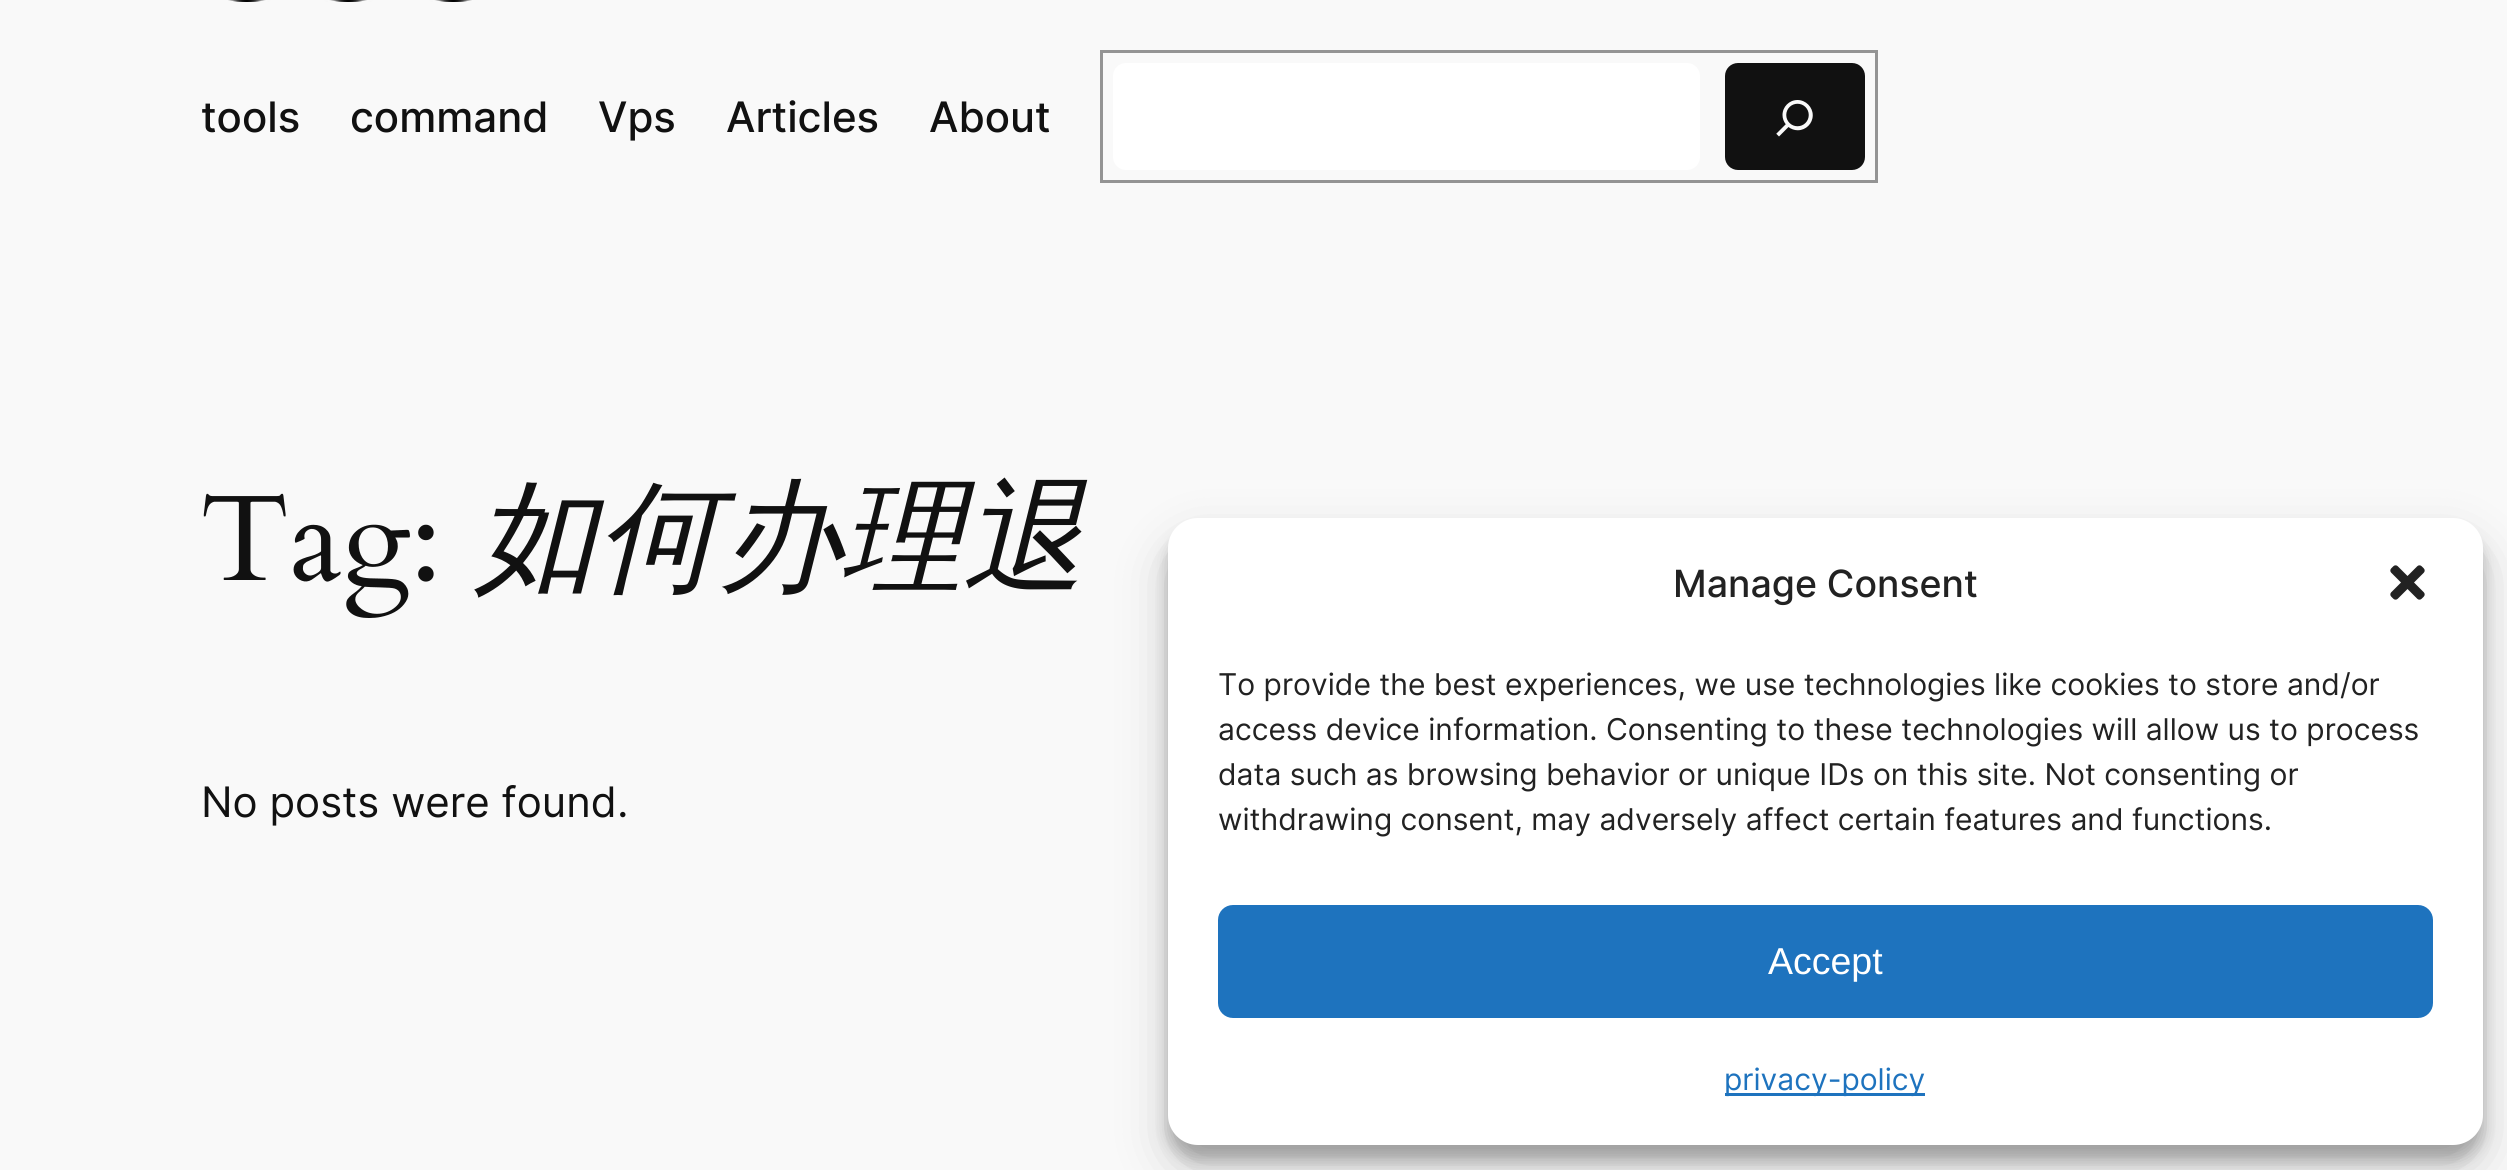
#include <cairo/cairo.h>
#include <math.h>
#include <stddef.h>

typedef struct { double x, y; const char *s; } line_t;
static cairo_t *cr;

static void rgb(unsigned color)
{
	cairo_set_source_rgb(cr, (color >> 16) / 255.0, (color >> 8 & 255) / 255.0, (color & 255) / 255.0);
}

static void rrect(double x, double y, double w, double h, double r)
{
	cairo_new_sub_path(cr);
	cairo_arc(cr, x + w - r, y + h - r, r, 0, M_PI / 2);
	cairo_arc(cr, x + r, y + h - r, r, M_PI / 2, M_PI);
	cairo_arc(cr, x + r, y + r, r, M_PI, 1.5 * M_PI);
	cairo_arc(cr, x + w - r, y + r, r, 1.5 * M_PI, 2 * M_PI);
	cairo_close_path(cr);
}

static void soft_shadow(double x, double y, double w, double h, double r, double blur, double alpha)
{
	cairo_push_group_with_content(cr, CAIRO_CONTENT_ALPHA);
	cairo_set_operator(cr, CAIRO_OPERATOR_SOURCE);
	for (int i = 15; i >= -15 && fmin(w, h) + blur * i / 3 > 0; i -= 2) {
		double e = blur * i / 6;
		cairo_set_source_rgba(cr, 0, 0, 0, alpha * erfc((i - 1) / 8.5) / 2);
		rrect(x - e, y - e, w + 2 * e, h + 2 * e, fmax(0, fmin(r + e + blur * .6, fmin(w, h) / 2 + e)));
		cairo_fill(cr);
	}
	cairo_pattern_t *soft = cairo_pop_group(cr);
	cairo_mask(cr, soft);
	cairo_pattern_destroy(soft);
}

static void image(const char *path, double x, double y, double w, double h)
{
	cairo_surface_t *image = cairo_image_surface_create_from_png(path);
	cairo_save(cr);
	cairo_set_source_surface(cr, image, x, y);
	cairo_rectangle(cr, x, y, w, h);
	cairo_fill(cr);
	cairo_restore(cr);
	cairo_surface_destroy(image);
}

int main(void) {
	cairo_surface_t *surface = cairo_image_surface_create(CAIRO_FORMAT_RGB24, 2507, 1170);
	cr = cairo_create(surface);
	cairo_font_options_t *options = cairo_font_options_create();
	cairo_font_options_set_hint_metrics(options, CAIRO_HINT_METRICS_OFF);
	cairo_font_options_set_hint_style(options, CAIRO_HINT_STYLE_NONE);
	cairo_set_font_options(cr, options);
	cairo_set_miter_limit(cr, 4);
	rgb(0xf9f9f9);
	cairo_paint(cr);
	image("img/1.png", 228, 0, 244, 2);
	cairo_rectangle(cr, 1101.5, 51.5, 775, 130);
	rgb(0x949494);
	cairo_set_line_width(cr, 3);
	cairo_stroke(cr);
	rgb(0xffffff);
	rrect(1113, 63, 587, 107, 13);
	cairo_fill(cr);
	rgb(0x111111);
	rrect(1725, 63, 140, 107, 13);
	cairo_fill(cr);
	image("img/2.png", 1776, 100, 37, 37);
	image("img/3.png", 203, 493, 231, 125);
	rgb(0x000000);
	soft_shadow(1168, 533, 1315, 627, 30, 7.5, 0.23);
	soft_shadow(1168, 543, 1315, 627, 30, 25, 0.19);
	rgb(0xffffff);
	rrect(1168, 518, 1315, 627, 30);
	cairo_fill(cr);
	image("img/4.png", 2390, 565, 35, 35);
	rgb(0x1e73be);
	rrect(1219.5, 906.5, 1212, 110, 13.5);
	cairo_fill_preserve(cr);
	cairo_stroke(cr);
	cairo_rectangle(cr, 1725, 1093, 200, 3);
	cairo_fill(cr);
	cairo_select_font_face(cr, "Inter Medium", CAIRO_FONT_SLANT_NORMAL, CAIRO_FONT_WEIGHT_NORMAL);
	cairo_set_font_size(cr, 42);
	rgb(0x111111);
	{
		static const line_t items[] = {
			{201, 132, "tools"},
			{350, 132, "command"},
			{598, 132, "Vps"},
			{726, 132, "Articles"},
			{929, 132, "About"},
		};
		for (size_t i = 0; i < sizeof items / sizeof *items; i++) {
			cairo_move_to(cr, items[i].x, items[i].y);
			cairo_show_text(cr, items[i].s);
		}
	}
	cairo_select_font_face(cr, "WenQuanYi Zen Hei Medium", CAIRO_FONT_SLANT_ITALIC, CAIRO_FONT_WEIGHT_NORMAL);
	cairo_set_font_size(cr, 122);
	cairo_move_to(cr, 475, 579);
	cairo_show_text(cr, "如何办理退");
	cairo_select_font_face(cr, "Inter", CAIRO_FONT_SLANT_NORMAL, CAIRO_FONT_WEIGHT_NORMAL);
	cairo_set_font_size(cr, 42);
	cairo_move_to(cr, 201, 817);
	cairo_show_text(cr, "No posts were found.");
	cairo_select_font_face(cr, "Inter Medium", CAIRO_FONT_SLANT_NORMAL, CAIRO_FONT_WEIGHT_NORMAL);
	cairo_set_font_size(cr, 37.5);
	rgb(0x222222);
	cairo_move_to(cr, 1673, 597);
	cairo_show_text(cr, "Manage Consent");
	cairo_select_font_face(cr, "Inter", CAIRO_FONT_SLANT_NORMAL, CAIRO_FONT_WEIGHT_NORMAL);
	cairo_set_font_size(cr, 30);
	{
		static const line_t items[] = {
			{1218, 695, "To provide the best experiences, we use technologies like cookies to store and/or"},
			{1218, 740, "access device information. Consenting to these technologies will allow us to process"},
			{1218, 785, "data such as browsing behavior or unique IDs on this site. Not consenting or"},
			{1218, 830, "withdrawing consent, may adversely affect certain features and functions."},
		};
		for (size_t i = 0; i < sizeof items / sizeof *items; i++) {
			cairo_move_to(cr, items[i].x, items[i].y);
			cairo_show_text(cr, items[i].s);
		}
	}
	cairo_select_font_face(cr, "Liberation Sans", CAIRO_FONT_SLANT_NORMAL, CAIRO_FONT_WEIGHT_NORMAL);
	cairo_set_font_size(cr, 37.5);
	rgb(0xffffff);
	cairo_move_to(cr, 1768, 974);
	cairo_show_text(cr, "Accept");
	cairo_select_font_face(cr, "Inter", CAIRO_FONT_SLANT_NORMAL, CAIRO_FONT_WEIGHT_NORMAL);
	cairo_set_font_size(cr, 30);
	rgb(0x1e73be);
	cairo_move_to(cr, 1724, 1090);
	cairo_show_text(cr, "privacy-policy");
	cairo_surface_write_to_png(surface, "page.png");
	cairo_font_options_destroy(options);
	cairo_destroy(cr);
	cairo_surface_destroy(surface);
	return 0;
}
